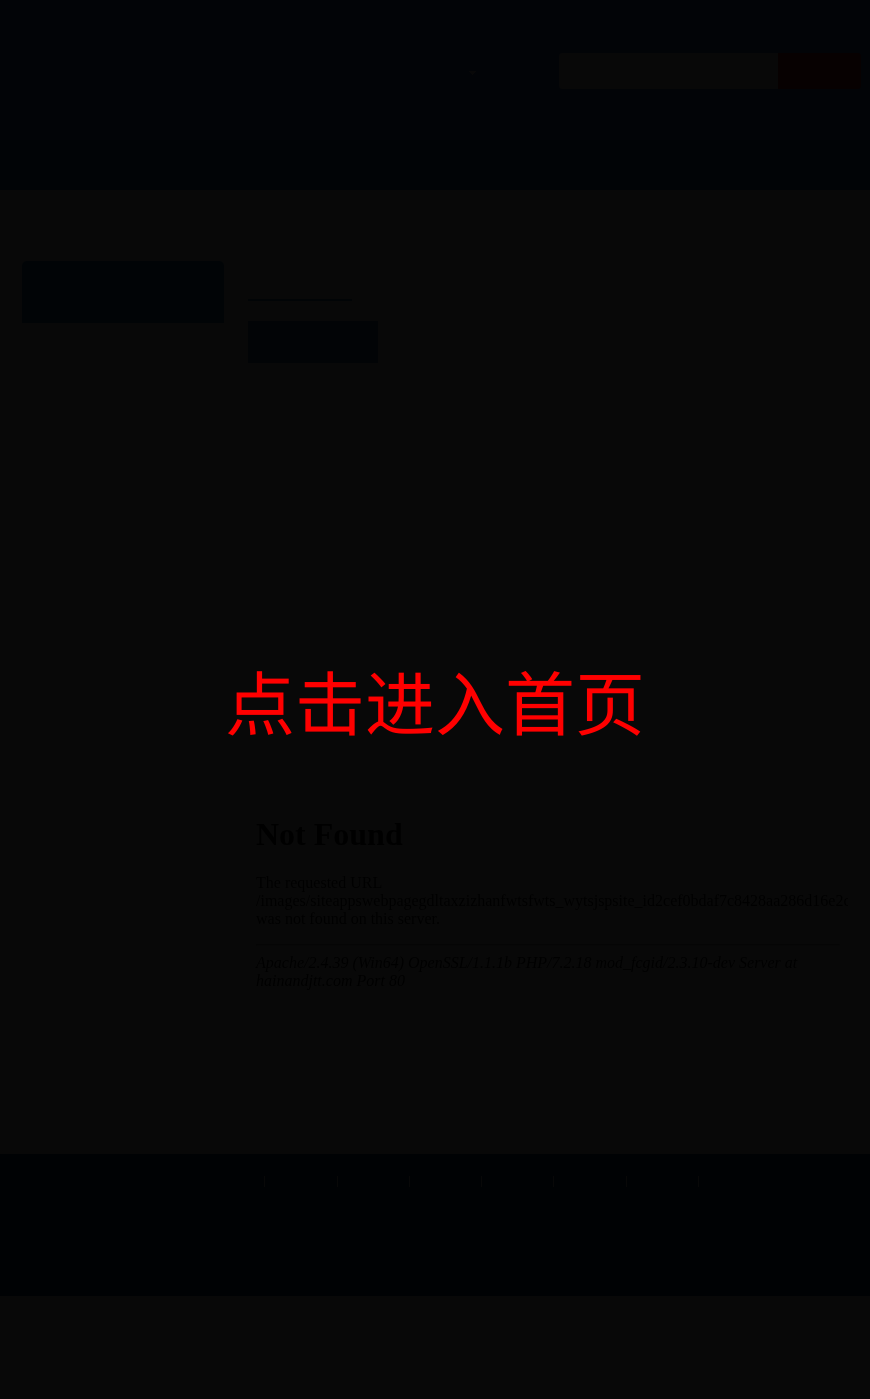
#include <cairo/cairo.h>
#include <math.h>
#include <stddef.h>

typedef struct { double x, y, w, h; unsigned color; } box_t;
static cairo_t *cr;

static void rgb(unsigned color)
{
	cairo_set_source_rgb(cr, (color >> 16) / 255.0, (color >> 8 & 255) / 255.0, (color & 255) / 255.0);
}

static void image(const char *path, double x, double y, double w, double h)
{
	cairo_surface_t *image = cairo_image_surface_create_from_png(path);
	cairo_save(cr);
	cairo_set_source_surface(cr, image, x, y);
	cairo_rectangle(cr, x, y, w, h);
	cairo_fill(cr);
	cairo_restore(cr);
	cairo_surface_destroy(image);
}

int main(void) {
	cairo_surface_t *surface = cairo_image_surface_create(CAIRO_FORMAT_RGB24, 870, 1399);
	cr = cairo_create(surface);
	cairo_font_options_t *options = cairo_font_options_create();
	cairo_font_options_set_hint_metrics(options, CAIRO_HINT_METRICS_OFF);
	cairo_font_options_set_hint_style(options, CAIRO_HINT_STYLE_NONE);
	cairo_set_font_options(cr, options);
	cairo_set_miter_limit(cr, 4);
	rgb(0x080808);
	cairo_paint(cr);
	rgb(0x020407);
	cairo_rectangle(cr, 0, 0, 870, 140);
	cairo_fill(cr);
	image("img/1.png", 469, 71, 7, 4);
	rgb(0x080808);
	cairo_new_path(cr);
	cairo_move_to(cr, 562, 53);
	cairo_line_to(cr, 778, 53);
	cairo_line_to(cr, 778, 89);
	cairo_line_to(cr, 562, 89);
	cairo_curve_to(cr, 560.5, 89, 559, 87.5, 559, 86);
	cairo_line_to(cr, 559, 56);
	cairo_curve_to(cr, 559, 54.5, 560.5, 53, 562, 53);
	cairo_close_path(cr);
	cairo_fill(cr);
	rgb(0x070101);
	cairo_new_path(cr);
	cairo_move_to(cr, 778, 53);
	cairo_line_to(cr, 858, 53);
	cairo_curve_to(cr, 859.5, 53, 861, 54.5, 861, 56);
	cairo_line_to(cr, 861, 86);
	cairo_curve_to(cr, 861, 87.5, 859.5, 89, 858, 89);
	cairo_line_to(cr, 778, 89);
	cairo_close_path(cr);
	cairo_fill(cr);
	rgb(0x010406);
	cairo_rectangle(cr, 0, 140, 870, 50);
	cairo_fill(cr);
	cairo_new_path(cr);
	cairo_move_to(cr, 27, 261);
	cairo_line_to(cr, 219, 261);
	cairo_curve_to(cr, 222, 261, 224, 263, 224, 266);
	cairo_line_to(cr, 224, 323);
	cairo_line_to(cr, 22, 323);
	cairo_line_to(cr, 22, 266);
	cairo_curve_to(cr, 22, 263, 24, 261, 27, 261);
	cairo_close_path(cr);
	cairo_fill(cr);
	cairo_rectangle(cr, 248, 299, 104, 2);
	cairo_fill(cr);
	rgb(0x020406);
	cairo_rectangle(cr, 248, 321, 130, 42);
	cairo_fill(cr);
	image("img/2.png", 255, 823, 593, 167);
	{
		static const box_t items[] = {
			{0, 1154, 870, 142, 0x000204},
			{264, 1176, 1, 11, 0x080808},
			{337, 1176, 1, 11, 0x080808},
			{409, 1176, 1, 11, 0x080808},
			{481, 1176, 1, 11, 0x080808},
			{553, 1176, 1, 11, 0x080808},
			{626, 1176, 1, 11, 0x080808},
			{698, 1176, 1, 11, 0x080808},
		};
		for (size_t i = 0; i < sizeof items / sizeof *items; i++) {
			rgb(items[i].color);
			cairo_rectangle(cr, items[i].x, items[i].y, items[i].w, items[i].h);
			cairo_fill(cr);
		}
	}
	cairo_select_font_face(cr, "Noto Sans CJK SC", CAIRO_FONT_SLANT_NORMAL, CAIRO_FONT_WEIGHT_NORMAL);
	cairo_set_font_size(cr, 70);
	rgb(0xff0000);
	cairo_move_to(cr, 225, 730);
	cairo_show_text(cr, "点击进入首页");
	cairo_surface_write_to_png(surface, "page.png");
	cairo_font_options_destroy(options);
	cairo_destroy(cr);
	cairo_surface_destroy(surface);
	return 0;
}
